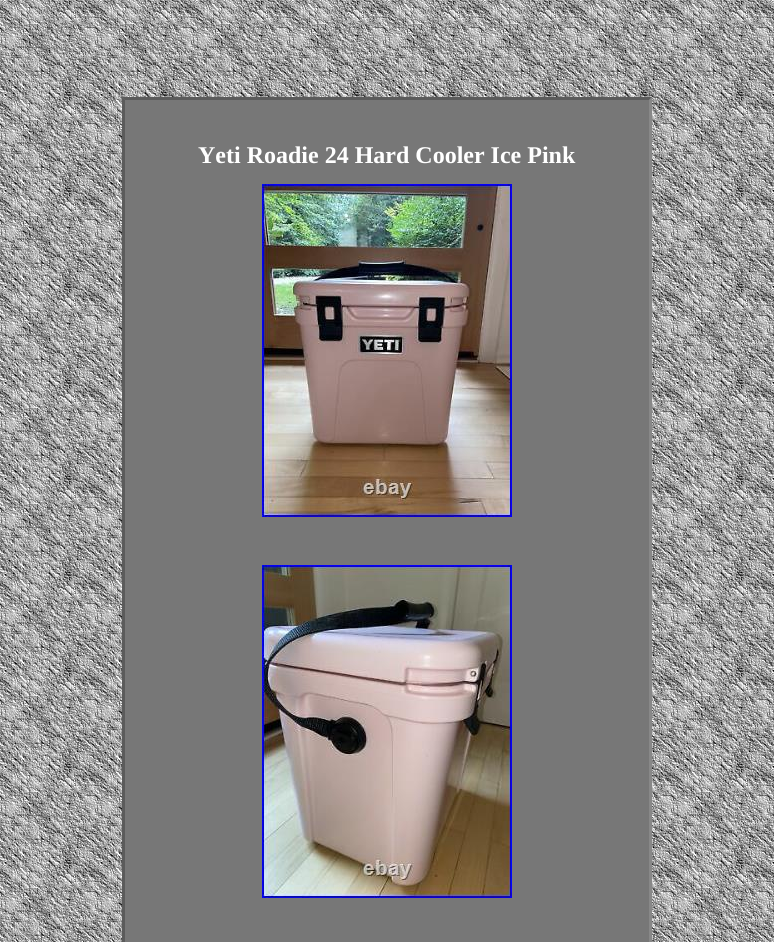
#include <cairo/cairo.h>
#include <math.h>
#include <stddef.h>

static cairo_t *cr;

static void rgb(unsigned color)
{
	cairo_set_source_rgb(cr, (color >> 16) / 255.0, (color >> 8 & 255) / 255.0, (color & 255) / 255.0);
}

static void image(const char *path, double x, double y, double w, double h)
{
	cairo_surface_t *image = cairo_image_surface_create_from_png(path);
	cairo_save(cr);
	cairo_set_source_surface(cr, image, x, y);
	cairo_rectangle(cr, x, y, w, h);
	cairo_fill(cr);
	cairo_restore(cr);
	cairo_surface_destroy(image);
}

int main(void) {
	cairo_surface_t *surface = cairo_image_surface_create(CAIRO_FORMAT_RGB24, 774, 942);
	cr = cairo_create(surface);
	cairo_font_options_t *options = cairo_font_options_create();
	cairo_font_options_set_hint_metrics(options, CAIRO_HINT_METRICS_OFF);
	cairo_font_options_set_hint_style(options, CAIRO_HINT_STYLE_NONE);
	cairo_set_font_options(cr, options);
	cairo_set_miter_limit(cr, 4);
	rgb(0xffffff);
	cairo_paint(cr);
	image("img/1.png", 0, 0, 774, 942);
	rgb(0x777777);
	cairo_rectangle(cr, 122, 97, 530, 845);
	cairo_fill(cr);
	rgb(0x5b5b5b);
	cairo_new_path(cr);
	cairo_move_to(cr, 122, 97);
	cairo_line_to(cr, 652, 97);
	cairo_line_to(cr, 649, 100);
	cairo_line_to(cr, 125, 100);
	cairo_close_path(cr);
	cairo_fill(cr);
	rgb(0x888888);
	cairo_new_path(cr);
	cairo_move_to(cr, 652, 97);
	cairo_line_to(cr, 652, 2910);
	cairo_line_to(cr, 649, 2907);
	cairo_line_to(cr, 649, 100);
	cairo_close_path(cr);
	cairo_fill(cr);
	rgb(0x5b5b5b);
	cairo_new_path(cr);
	cairo_move_to(cr, 122, 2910);
	cairo_line_to(cr, 122, 97);
	cairo_line_to(cr, 125, 100);
	cairo_line_to(cr, 125, 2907);
	cairo_close_path(cr);
	cairo_fill(cr);
	image("img/2.png", 262, 184, 250, 333);
	image("img/3.png", 262, 565, 250, 333);
	cairo_select_font_face(cr, "Liberation Serif", CAIRO_FONT_SLANT_NORMAL, CAIRO_FONT_WEIGHT_BOLD);
	cairo_set_font_size(cr, 24);
	rgb(0xffffff);
	cairo_move_to(cr, 198, 163);
	cairo_show_text(cr, "Yeti Roadie 24 Hard Cooler Ice Pink");
	cairo_surface_write_to_png(surface, "page.png");
	cairo_font_options_destroy(options);
	cairo_destroy(cr);
	cairo_surface_destroy(surface);
	return 0;
}
